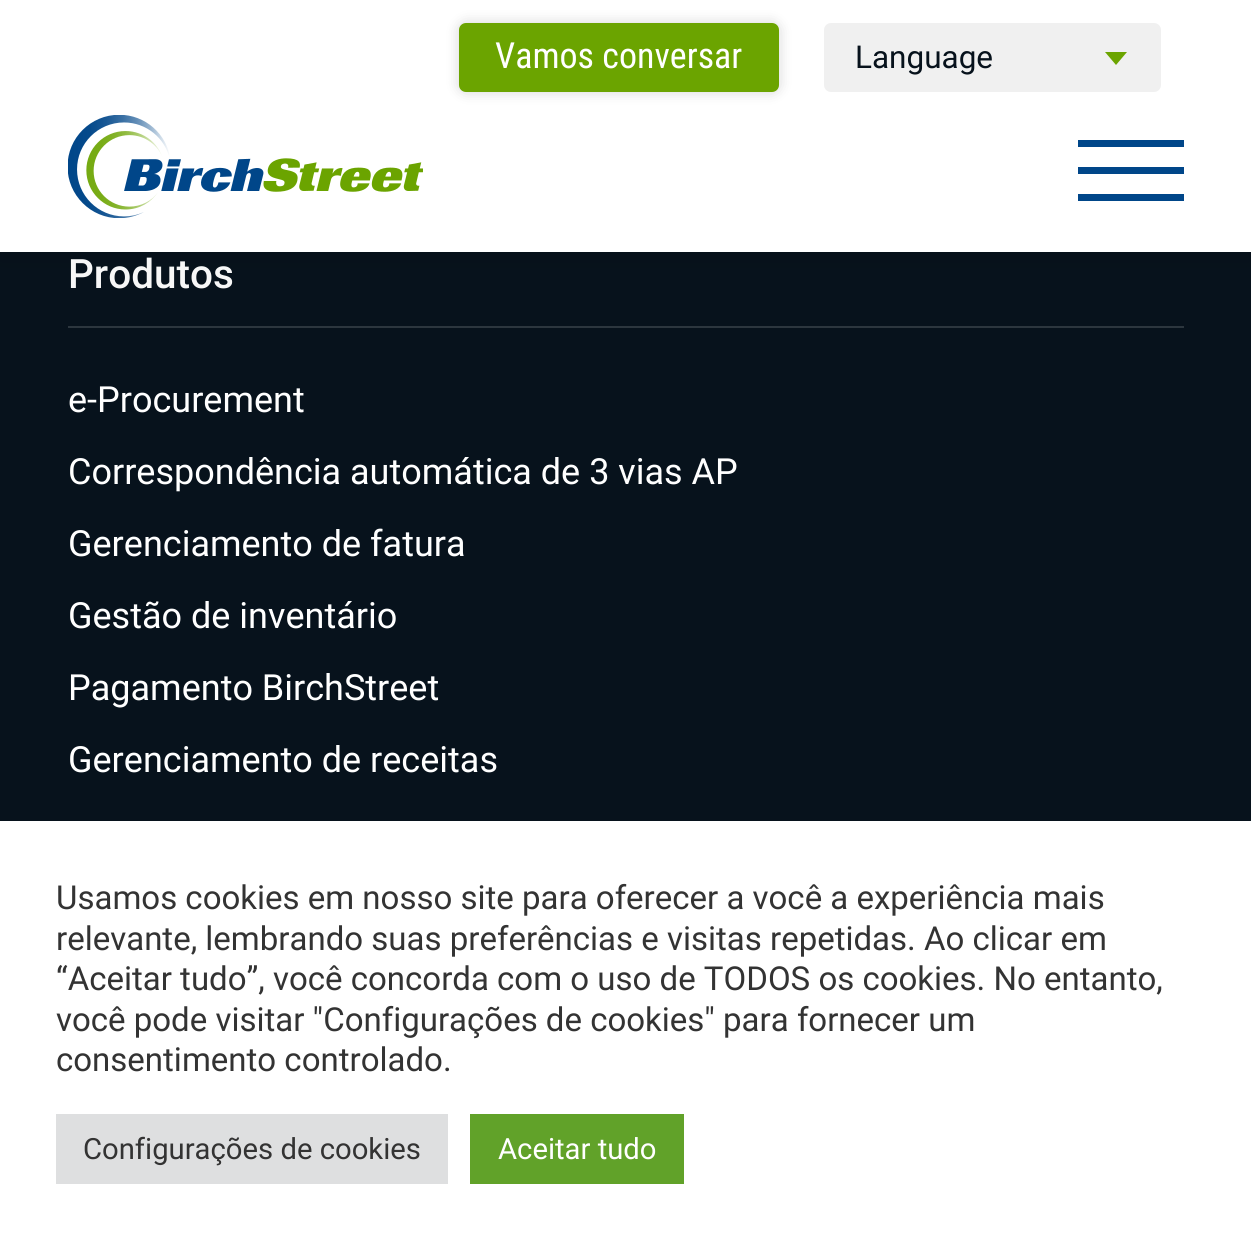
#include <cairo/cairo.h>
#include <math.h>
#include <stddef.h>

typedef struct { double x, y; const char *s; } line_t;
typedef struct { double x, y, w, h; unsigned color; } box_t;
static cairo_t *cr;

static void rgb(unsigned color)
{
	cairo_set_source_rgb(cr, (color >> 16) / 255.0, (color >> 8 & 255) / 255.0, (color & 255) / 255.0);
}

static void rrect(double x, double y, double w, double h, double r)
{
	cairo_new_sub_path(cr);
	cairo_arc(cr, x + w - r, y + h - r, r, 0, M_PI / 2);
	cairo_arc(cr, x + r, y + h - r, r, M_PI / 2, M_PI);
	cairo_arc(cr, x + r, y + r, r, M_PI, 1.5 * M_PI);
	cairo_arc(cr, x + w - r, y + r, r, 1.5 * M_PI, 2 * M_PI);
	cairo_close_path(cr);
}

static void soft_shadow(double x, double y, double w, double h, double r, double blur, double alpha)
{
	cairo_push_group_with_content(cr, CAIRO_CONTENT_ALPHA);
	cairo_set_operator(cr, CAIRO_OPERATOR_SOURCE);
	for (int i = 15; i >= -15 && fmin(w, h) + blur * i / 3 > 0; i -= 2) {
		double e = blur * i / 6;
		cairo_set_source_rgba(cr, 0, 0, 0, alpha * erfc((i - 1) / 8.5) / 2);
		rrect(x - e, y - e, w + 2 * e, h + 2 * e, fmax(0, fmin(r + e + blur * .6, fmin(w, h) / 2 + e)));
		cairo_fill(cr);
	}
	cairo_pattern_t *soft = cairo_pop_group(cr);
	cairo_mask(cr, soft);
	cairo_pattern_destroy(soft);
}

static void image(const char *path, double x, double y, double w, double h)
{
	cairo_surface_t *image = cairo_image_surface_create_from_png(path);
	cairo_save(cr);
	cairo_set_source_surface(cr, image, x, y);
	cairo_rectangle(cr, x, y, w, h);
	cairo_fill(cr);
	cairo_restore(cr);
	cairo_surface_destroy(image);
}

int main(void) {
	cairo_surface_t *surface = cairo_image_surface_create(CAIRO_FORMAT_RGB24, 1251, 1251);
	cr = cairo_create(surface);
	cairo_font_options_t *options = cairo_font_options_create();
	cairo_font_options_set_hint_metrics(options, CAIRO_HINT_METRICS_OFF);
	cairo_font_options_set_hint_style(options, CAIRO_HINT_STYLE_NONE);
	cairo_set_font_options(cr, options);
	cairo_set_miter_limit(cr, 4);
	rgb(0x07121c);
	cairo_paint(cr);
	rgb(0x000000);
	soft_shadow(0, 0, 1251, 252, 0, 13.5, 0.16);
	rgb(0xffffff);
	cairo_rectangle(cr, 0, 0, 1251, 252);
	cairo_fill(cr);
	rgb(0x000000);
	soft_shadow(459, 23, 320, 69, 7, 7, 0.16);
	rgb(0x6ba400);
	rrect(459, 23, 320, 69, 7);
	cairo_fill(cr);
	rgb(0xf0f0f0);
	rrect(824, 23, 337, 69, 7);
	cairo_fill(cr);
	rgb(0x6ba400);
	cairo_new_path(cr);
	cairo_move_to(cr, 1105, 52);
	cairo_line_to(cr, 1127, 52);
	cairo_line_to(cr, 1116, 65);
	cairo_close_path(cr);
	cairo_fill(cr);
	image("img/1.png", 68, 115, 355, 103);
	{
		static const box_t items[] = {
			{1078, 167, 106, 7, 0x004689},
			{1078, 140, 106, 7, 0x004689},
			{1078, 194, 106, 7, 0x004689},
			{68, 326, 1116, 2, 0x2c363e},
			{0, 821, 1251, 430, 0xffffff},
			{56, 1114, 392, 70, 0xdedfe0},
			{470, 1114, 214, 70, 0x61a229},
		};
		for (size_t i = 0; i < sizeof items / sizeof *items; i++) {
			rgb(items[i].color);
			cairo_rectangle(cr, items[i].x, items[i].y, items[i].w, items[i].h);
			cairo_fill(cr);
		}
	}
	cairo_select_font_face(cr, "Roboto Condensed", CAIRO_FONT_SLANT_NORMAL, CAIRO_FONT_WEIGHT_NORMAL);
	cairo_set_font_size(cr, 36);
	rgb(0xffffff);
	cairo_move_to(cr, 495, 68);
	cairo_show_text(cr, "Vamos conversar");
	cairo_select_font_face(cr, "Roboto", CAIRO_FONT_SLANT_NORMAL, CAIRO_FONT_WEIGHT_NORMAL);
	cairo_set_font_size(cr, 31.5);
	rgb(0x07121c);
	cairo_move_to(cr, 855, 68);
	cairo_show_text(cr, "Language");
	cairo_select_font_face(cr, "Roboto Medium", CAIRO_FONT_SLANT_NORMAL, CAIRO_FONT_WEIGHT_NORMAL);
	cairo_set_font_size(cr, 40.5);
	rgb(0xf7f7f7);
	cairo_move_to(cr, 68, 288);
	cairo_show_text(cr, "Produtos");
	cairo_select_font_face(cr, "Roboto", CAIRO_FONT_SLANT_NORMAL, CAIRO_FONT_WEIGHT_NORMAL);
	cairo_set_font_size(cr, 36);
	rgb(0xffffff);
	{
		static const line_t items[] = {
			{68, 412, "e-Procurement"},
			{68, 484, "Correspondência automática de 3 vias AP"},
			{68, 556, "Gerenciamento de fatura"},
			{68, 628, "Gestão de inventário"},
			{68, 700, "Pagamento BirchStreet"},
			{68, 772, "Gerenciamento de receitas"},
		};
		for (size_t i = 0; i < sizeof items / sizeof *items; i++) {
			cairo_move_to(cr, items[i].x, items[i].y);
			cairo_show_text(cr, items[i].s);
		}
	}
	cairo_set_font_size(cr, 33);
	rgb(0x333333);
	{
		static const line_t items[] = {
			{56, 909, "Usamos cookies em nosso site para oferecer a você a experiência mais"},
			{56, 950, "relevante, lembrando suas preferências e visitas repetidas. Ao clicar em"},
			{56, 990, "“Aceitar tudo”, você concorda com o uso de TODOS os cookies. No entanto,"},
			{56, 1031, "você pode visitar \"Configurações de cookies\" para fornecer um"},
			{56, 1071, "consentimento controlado."},
		};
		for (size_t i = 0; i < sizeof items / sizeof *items; i++) {
			cairo_move_to(cr, items[i].x, items[i].y);
			cairo_show_text(cr, items[i].s);
		}
	}
	cairo_set_font_size(cr, 29.25);
	cairo_move_to(cr, 83, 1159);
	cairo_show_text(cr, "Configurações de cookies");
	rgb(0xffffff);
	cairo_move_to(cr, 498, 1159);
	cairo_show_text(cr, "Aceitar tudo");
	cairo_surface_write_to_png(surface, "page.png");
	cairo_font_options_destroy(options);
	cairo_destroy(cr);
	cairo_surface_destroy(surface);
	return 0;
}
